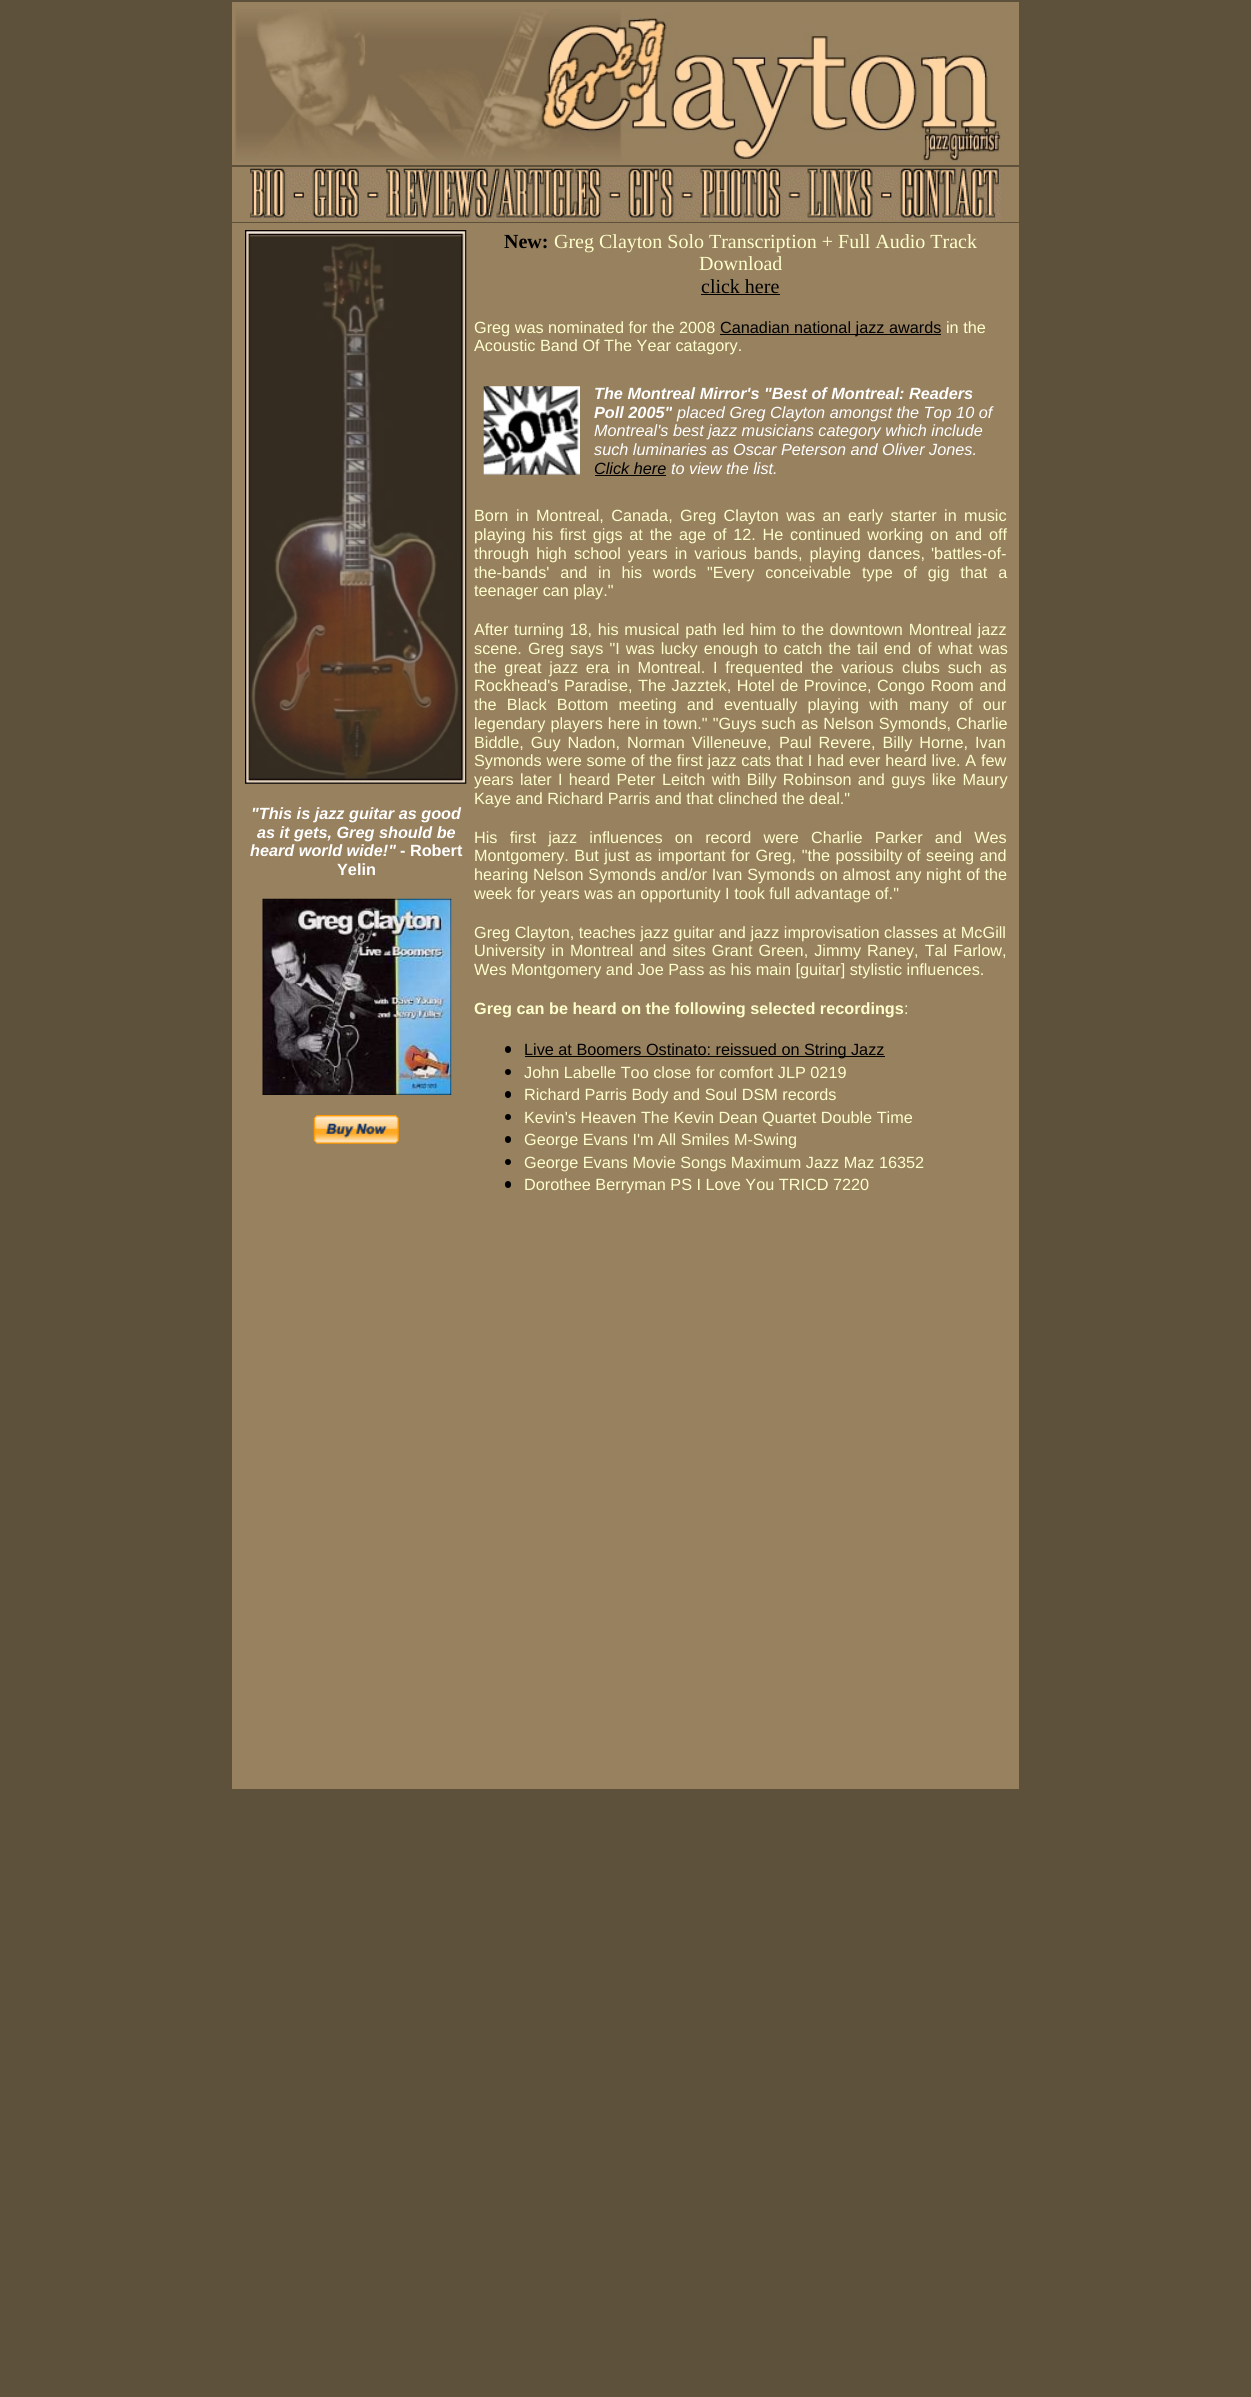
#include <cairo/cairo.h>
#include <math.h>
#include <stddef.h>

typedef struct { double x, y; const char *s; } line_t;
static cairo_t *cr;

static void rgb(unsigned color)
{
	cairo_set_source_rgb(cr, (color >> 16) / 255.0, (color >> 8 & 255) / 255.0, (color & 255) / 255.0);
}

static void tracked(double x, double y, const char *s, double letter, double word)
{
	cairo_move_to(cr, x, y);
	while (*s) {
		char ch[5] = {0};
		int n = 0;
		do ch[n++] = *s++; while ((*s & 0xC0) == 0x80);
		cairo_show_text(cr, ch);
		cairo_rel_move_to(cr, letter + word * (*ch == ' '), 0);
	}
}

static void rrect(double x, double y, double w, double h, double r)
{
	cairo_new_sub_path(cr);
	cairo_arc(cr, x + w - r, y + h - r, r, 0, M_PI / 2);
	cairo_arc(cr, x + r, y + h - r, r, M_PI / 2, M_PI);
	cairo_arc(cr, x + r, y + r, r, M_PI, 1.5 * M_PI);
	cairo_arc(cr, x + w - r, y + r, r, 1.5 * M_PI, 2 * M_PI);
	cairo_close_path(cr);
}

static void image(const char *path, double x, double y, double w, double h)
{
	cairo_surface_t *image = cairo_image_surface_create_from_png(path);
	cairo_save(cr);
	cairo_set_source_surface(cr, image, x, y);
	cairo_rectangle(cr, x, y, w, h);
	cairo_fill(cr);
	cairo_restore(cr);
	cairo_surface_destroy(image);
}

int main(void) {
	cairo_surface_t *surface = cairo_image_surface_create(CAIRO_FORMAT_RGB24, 1251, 2397);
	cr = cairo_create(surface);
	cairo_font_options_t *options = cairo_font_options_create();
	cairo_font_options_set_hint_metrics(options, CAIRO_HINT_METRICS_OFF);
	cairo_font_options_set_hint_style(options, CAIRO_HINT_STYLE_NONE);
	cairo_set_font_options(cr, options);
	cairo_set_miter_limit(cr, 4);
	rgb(0x5e513c);
	cairo_paint(cr);
	rgb(0x98815f);
	cairo_rectangle(cr, 232, 2, 787, 163);
	cairo_fill(cr);
	image("img/1.png", 235, 9, 766, 153);
	cairo_rectangle(cr, 232, 167, 787, 55);
	cairo_fill(cr);
	image("img/2.png", 250, 168, 751, 52);
	cairo_rectangle(cr, 232, 223, 787, 1566);
	cairo_fill(cr);
	image("img/3.png", 245, 230, 222, 554);
	image("img/4.png", 262, 898, 190, 197);
	image("img/5.png", 313, 1115, 86, 29);
	rgb(0x000000);
	cairo_rectangle(cr, 701, 294, 79, 1);
	cairo_fill(cr);
	cairo_rectangle(cr, 720, 334, 221, 1);
	cairo_fill(cr);
	image("img/6.png", 483, 386, 97, 89);
	cairo_rectangle(cr, 595, 475, 71, 1);
	cairo_fill(cr);
	rrect(505, 1046, 6, 7, 3);
	cairo_fill(cr);
	cairo_rectangle(cr, 525, 1056, 360, 1);
	cairo_fill(cr);
	cairo_arc(cr, 508, 1072, 3, 0, 2 * M_PI);
	cairo_fill(cr);
	rrect(505, 1091, 6, 7, 3);
	cairo_fill(cr);
	cairo_arc(cr, 508, 1117, 3, 0, 2 * M_PI);
	cairo_fill(cr);
	rrect(505, 1136, 6, 7, 3);
	cairo_fill(cr);
	cairo_arc(cr, 508, 1162, 3, 0, 2 * M_PI);
	cairo_fill(cr);
	rrect(505, 1181, 6, 7, 3);
	cairo_fill(cr);
	cairo_select_font_face(cr, "Liberation Sans", CAIRO_FONT_SLANT_ITALIC, CAIRO_FONT_WEIGHT_BOLD);
	cairo_set_font_size(cr, 16.25);
	rgb(0xffffff);
	{
		static const line_t items[] = {
			{251, 819, "\"This is jazz guitar as good"},
			{257, 838, "as it gets, Greg should be"},
			{250, 856, "heard world wide!\""},
		};
		for (size_t i = 0; i < sizeof items / sizeof *items; i++) {
			cairo_move_to(cr, items[i].x, items[i].y);
			cairo_show_text(cr, items[i].s);
		}
	}
	cairo_select_font_face(cr, "Liberation Sans", CAIRO_FONT_SLANT_NORMAL, CAIRO_FONT_WEIGHT_BOLD);
	cairo_move_to(cr, 400, 856);
	cairo_show_text(cr, "- Robert");
	cairo_move_to(cr, 337, 875);
	cairo_show_text(cr, "Yelin");
	cairo_select_font_face(cr, "Liberation Serif", CAIRO_FONT_SLANT_NORMAL, CAIRO_FONT_WEIGHT_BOLD);
	cairo_set_font_size(cr, 20);
	rgb(0x000000);
	cairo_move_to(cr, 504, 248);
	cairo_show_text(cr, "New:");
	cairo_select_font_face(cr, "Liberation Serif", CAIRO_FONT_SLANT_NORMAL, CAIRO_FONT_WEIGHT_NORMAL);
	rgb(0xffffcc);
	cairo_move_to(cr, 554, 248);
	cairo_show_text(cr, "Greg Clayton Solo Transcription + Full Audio Track");
	cairo_move_to(cr, 699, 270);
	cairo_show_text(cr, "Download");
	rgb(0x000000);
	cairo_move_to(cr, 701, 293);
	cairo_show_text(cr, "click here");
	cairo_select_font_face(cr, "Liberation Sans", CAIRO_FONT_SLANT_NORMAL, CAIRO_FONT_WEIGHT_NORMAL);
	cairo_set_font_size(cr, 16.25);
	rgb(0xffffcc);
	cairo_move_to(cr, 474, 333);
	cairo_show_text(cr, "Greg was nominated for the 2008");
	rgb(0x000000);
	cairo_move_to(cr, 720, 333);
	cairo_show_text(cr, "Canadian national jazz awards");
	rgb(0xffffcc);
	cairo_move_to(cr, 946, 333);
	cairo_show_text(cr, "in the");
	cairo_move_to(cr, 474, 351);
	cairo_show_text(cr, "Acoustic Band Of The Year catagory.");
	cairo_select_font_face(cr, "Liberation Sans", CAIRO_FONT_SLANT_ITALIC, CAIRO_FONT_WEIGHT_BOLD);
	rgb(0xffffff);
	cairo_move_to(cr, 594, 399);
	cairo_show_text(cr, "The Montreal Mirror's \"Best of Montreal: Readers");
	cairo_move_to(cr, 594, 418);
	cairo_show_text(cr, "Poll 2005\"");
	cairo_select_font_face(cr, "Liberation Sans", CAIRO_FONT_SLANT_ITALIC, CAIRO_FONT_WEIGHT_NORMAL);
	{
		static const line_t items[] = {
			{677, 418, "placed Greg Clayton amongst the Top 10 of"},
			{594, 436, "Montreal's best jazz musicians category which include"},
			{594, 455, "such luminaries as Oscar Peterson and Oliver Jones."},
		};
		for (size_t i = 0; i < sizeof items / sizeof *items; i++) {
			cairo_move_to(cr, items[i].x, items[i].y);
			cairo_show_text(cr, items[i].s);
		}
	}
	rgb(0x000000);
	cairo_move_to(cr, 594, 474);
	cairo_show_text(cr, "Click here");
	rgb(0xffffff);
	cairo_move_to(cr, 671, 474);
	cairo_show_text(cr, "to view the list.");
	cairo_select_font_face(cr, "Liberation Sans", CAIRO_FONT_SLANT_NORMAL, CAIRO_FONT_WEIGHT_NORMAL);
	rgb(0xffffcc);
	cairo_move_to(cr, 474, 521);
	cairo_show_text(cr, "Born");
	tracked(516, 521, "in Montreal, Canada, Greg Clayton was an early starter in music", 0, 2.9);
	tracked(474, 540, "playing his first gigs at the age of 12. He continued working on", 0, 2.25);
	tracked(955, 540, "and off", 0, 2.25);
	tracked(474, 559, "through high school years in various bands, playing dances,", 0, 2.5);
	cairo_move_to(cr, 931, 559);
	cairo_show_text(cr, "'battles-of-");
	tracked(474, 578, "the-bands' and in his words \"Every conceivable", 0, 6.25);
	tracked(862, 578, "type of gig that a", 0, 6.25);
	cairo_move_to(cr, 474, 596);
	cairo_show_text(cr, "teenager can play.\"");
	cairo_move_to(cr, 474, 635);
	cairo_show_text(cr, "After");
	tracked(514, 635, "turning 18, his musical path led him to the downtown Montreal jazz", 0, 1.25);
	tracked(474, 654, "scene. Greg says \"I was lucky enough to catch the tail end", 0, 1.5);
	tracked(918, 654, "of what was", 0, 2);
	tracked(474, 673, "the great jazz era in Montreal. I frequented the various", 0, 3.25);
	tracked(902, 673, "clubs such as", 0, 3.25);
	tracked(474, 691, "Rockhead's Paradise, The Jazztek, Hotel de Province,", 0, 1);
	tracked(877, 691, "Congo Room and", 0, 1);
	tracked(474, 710, "the Black Bottom meeting and eventually playing with", 0, 5.75);
	tracked(909, 710, "many of our", 0, 5.75);
	tracked(474, 729, "legendary players here in town.\" \"Guys such", 0, 0.5);
	tracked(801, 729, "as Nelson Symonds, Charlie", 0, 0.5);
	tracked(474, 748, "Biddle, Guy Nadon, Norman Villeneuve,", 0, 2.5);
	tracked(779, 748, "Paul Revere, Billy Horne, Ivan", 0, 2.5);
	tracked(474, 766, "Symonds were some of the first jazz cats that I had ever heard live. A few", 0, 0.25);
	tracked(474, 785, "years later I heard Peter", 0, 1.75);
	tracked(662, 785, "Leitch with Billy Robinson and guys like Maury", 0, 1.75);
	cairo_move_to(cr, 474, 804);
	cairo_show_text(cr, "Kaye and Richard Parris and that clinched the deal.\"");
	tracked(474, 843, "His first jazz influences on record were Charlie Parker and Wes", 0, 7.75);
	tracked(474, 861, "Montgomery. But just as important for Greg, \"the possibilty", 0, 1);
	tracked(907, 861, "of seeing and", 0, 1);
	tracked(474, 880, "hearing Nelson Symonds and/or Ivan Symonds on almost any night of the", 0, 0.25);
	cairo_move_to(cr, 474, 899);
	cairo_show_text(cr, "week for years was an opportunity I took full advantage of.\"");
	cairo_move_to(cr, 474, 938);
	cairo_show_text(cr, "Greg Clayton, teaches jazz guitar and jazz improvisation classes at McGill");
	tracked(474, 956, "University in Montreal and sites Grant Green, Jimmy Raney, Tal Farlow,", 0, 1.5);
	cairo_move_to(cr, 474, 975);
	cairo_show_text(cr, "Wes Montgomery and Joe Pass as his main [guitar] stylistic influences.");
	cairo_select_font_face(cr, "Liberation Sans", CAIRO_FONT_SLANT_NORMAL, CAIRO_FONT_WEIGHT_BOLD);
	cairo_move_to(cr, 474, 1014);
	cairo_show_text(cr, "Greg can be heard on the following selected recordings");
	cairo_select_font_face(cr, "Liberation Sans", CAIRO_FONT_SLANT_NORMAL, CAIRO_FONT_WEIGHT_NORMAL);
	cairo_move_to(cr, 904, 1014);
	cairo_show_text(cr, ":");
	rgb(0x000000);
	cairo_move_to(cr, 524, 1055);
	cairo_show_text(cr, "Live at Boomers Ostinato: reissued on String Jazz");
	rgb(0xffffcc);
	{
		static const line_t items[] = {
			{524, 1078, "John Labelle Too close for comfort JLP 0219"},
			{524, 1100, "Richard Parris Body and Soul DSM records"},
			{524, 1123, "Kevin's Heaven The Kevin Dean Quartet Double Time"},
			{524, 1145, "George Evans I'm All Smiles M-Swing"},
			{524, 1168, "George Evans Movie Songs Maximum Jazz Maz 16352"},
			{524, 1190, "Dorothee Berryman PS I Love You TRICD 7220"},
		};
		for (size_t i = 0; i < sizeof items / sizeof *items; i++) {
			cairo_move_to(cr, items[i].x, items[i].y);
			cairo_show_text(cr, items[i].s);
		}
	}
	cairo_surface_write_to_png(surface, "page.png");
	cairo_font_options_destroy(options);
	cairo_destroy(cr);
	cairo_surface_destroy(surface);
	return 0;
}
